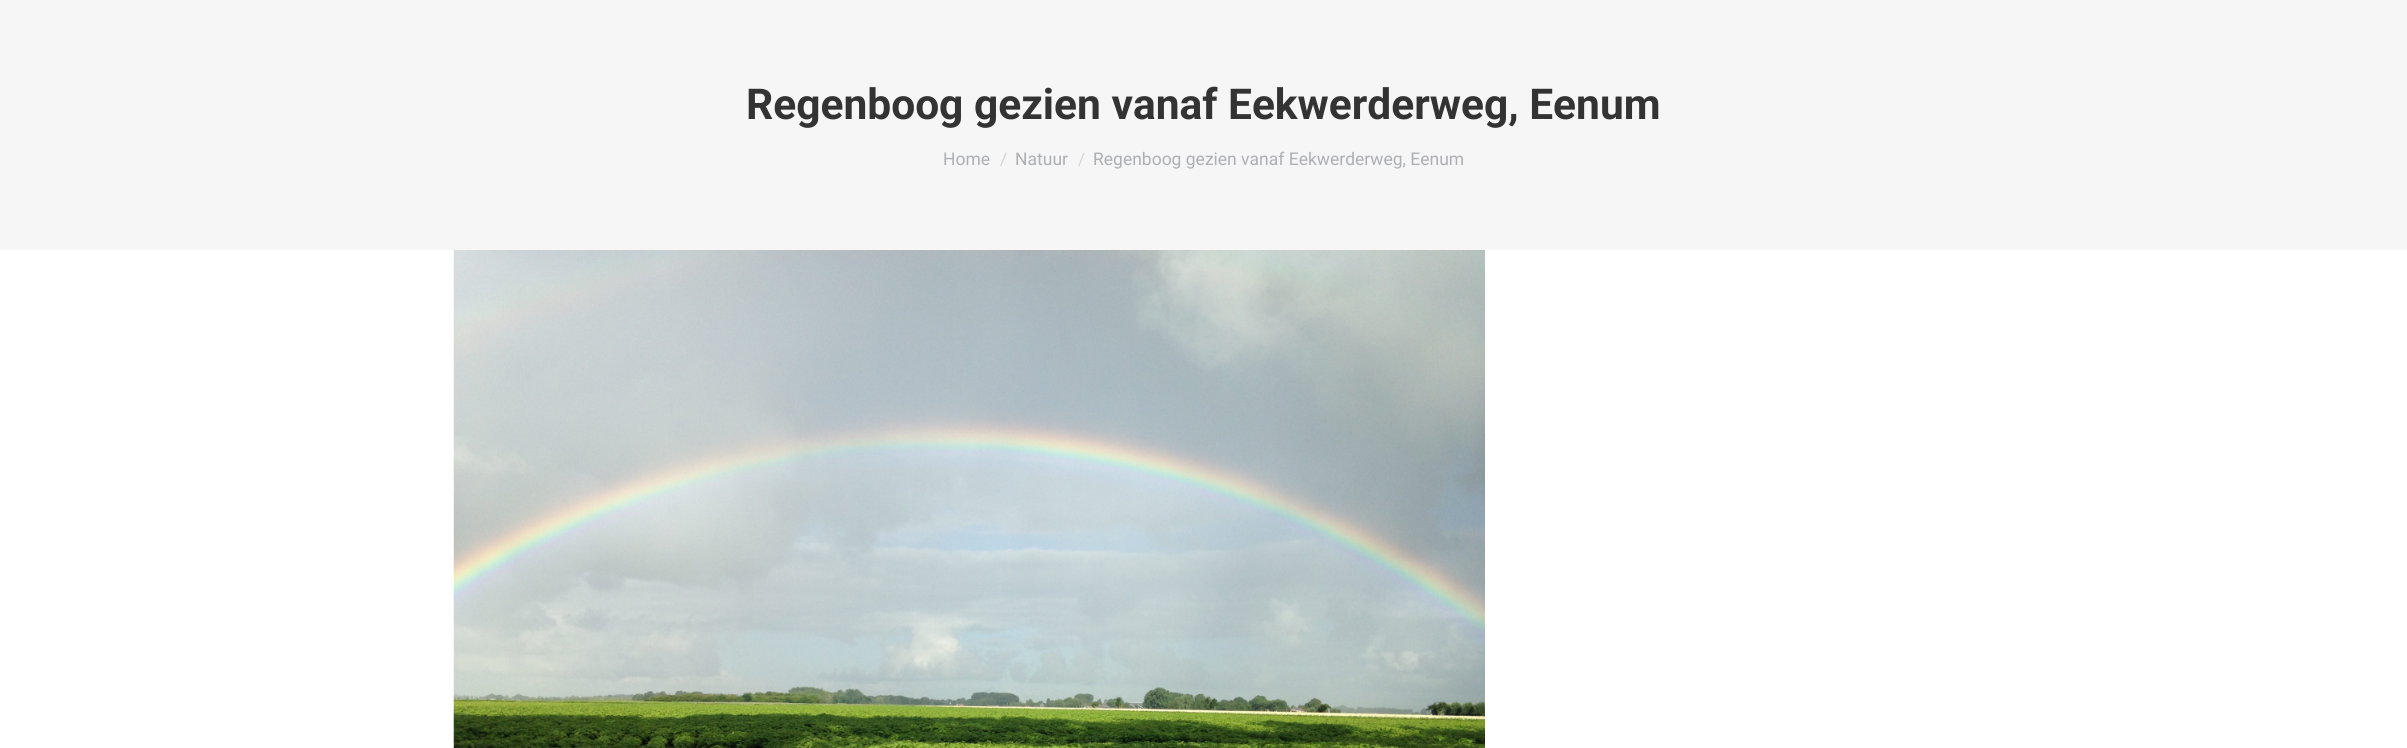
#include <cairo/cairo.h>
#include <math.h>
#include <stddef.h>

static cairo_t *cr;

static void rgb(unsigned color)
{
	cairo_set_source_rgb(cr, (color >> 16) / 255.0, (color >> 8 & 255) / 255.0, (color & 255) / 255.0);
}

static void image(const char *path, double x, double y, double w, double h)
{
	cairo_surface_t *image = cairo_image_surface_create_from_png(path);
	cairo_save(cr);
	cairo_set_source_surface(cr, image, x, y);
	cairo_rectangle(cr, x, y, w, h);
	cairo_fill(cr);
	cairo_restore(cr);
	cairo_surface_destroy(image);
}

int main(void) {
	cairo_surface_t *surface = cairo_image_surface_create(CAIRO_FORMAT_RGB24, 2407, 748);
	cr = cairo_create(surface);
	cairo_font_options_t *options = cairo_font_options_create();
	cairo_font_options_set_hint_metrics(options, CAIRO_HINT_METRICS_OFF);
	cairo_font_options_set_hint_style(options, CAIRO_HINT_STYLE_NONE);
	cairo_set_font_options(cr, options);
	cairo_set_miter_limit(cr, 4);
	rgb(0xffffff);
	cairo_paint(cr);
	rgb(0xf6f6f6);
	cairo_rectangle(cr, 0, 0, 2407, 250);
	cairo_fill(cr);
	image("img/1.png", 453, 250, 1032, 498);
	cairo_select_font_face(cr, "Roboto", CAIRO_FONT_SLANT_NORMAL, CAIRO_FONT_WEIGHT_BOLD);
	cairo_set_font_size(cr, 42.5);
	rgb(0x333333);
	cairo_move_to(cr, 746, 119);
	cairo_show_text(cr, "Regenboog gezien vanaf Eekwerderweg, Eenum");
	cairo_select_font_face(cr, "Roboto", CAIRO_FONT_SLANT_NORMAL, CAIRO_FONT_WEIGHT_NORMAL);
	cairo_set_font_size(cr, 17.5);
	rgb(0xadafb3);
	cairo_move_to(cr, 943, 165);
	cairo_show_text(cr, "Home");
	rgb(0xd2d3d5);
	cairo_move_to(cr, 1000, 165);
	cairo_show_text(cr, "/");
	rgb(0xadafb3);
	cairo_move_to(cr, 1015, 165);
	cairo_show_text(cr, "Natuur");
	rgb(0xd2d3d5);
	cairo_move_to(cr, 1078, 165);
	cairo_show_text(cr, "/");
	rgb(0xadafb3);
	cairo_move_to(cr, 1093, 165);
	cairo_show_text(cr, "Regenboog gezien vanaf Eekwerderweg, Eenum");
	cairo_surface_write_to_png(surface, "page.png");
	cairo_font_options_destroy(options);
	cairo_destroy(cr);
	cairo_surface_destroy(surface);
	return 0;
}
